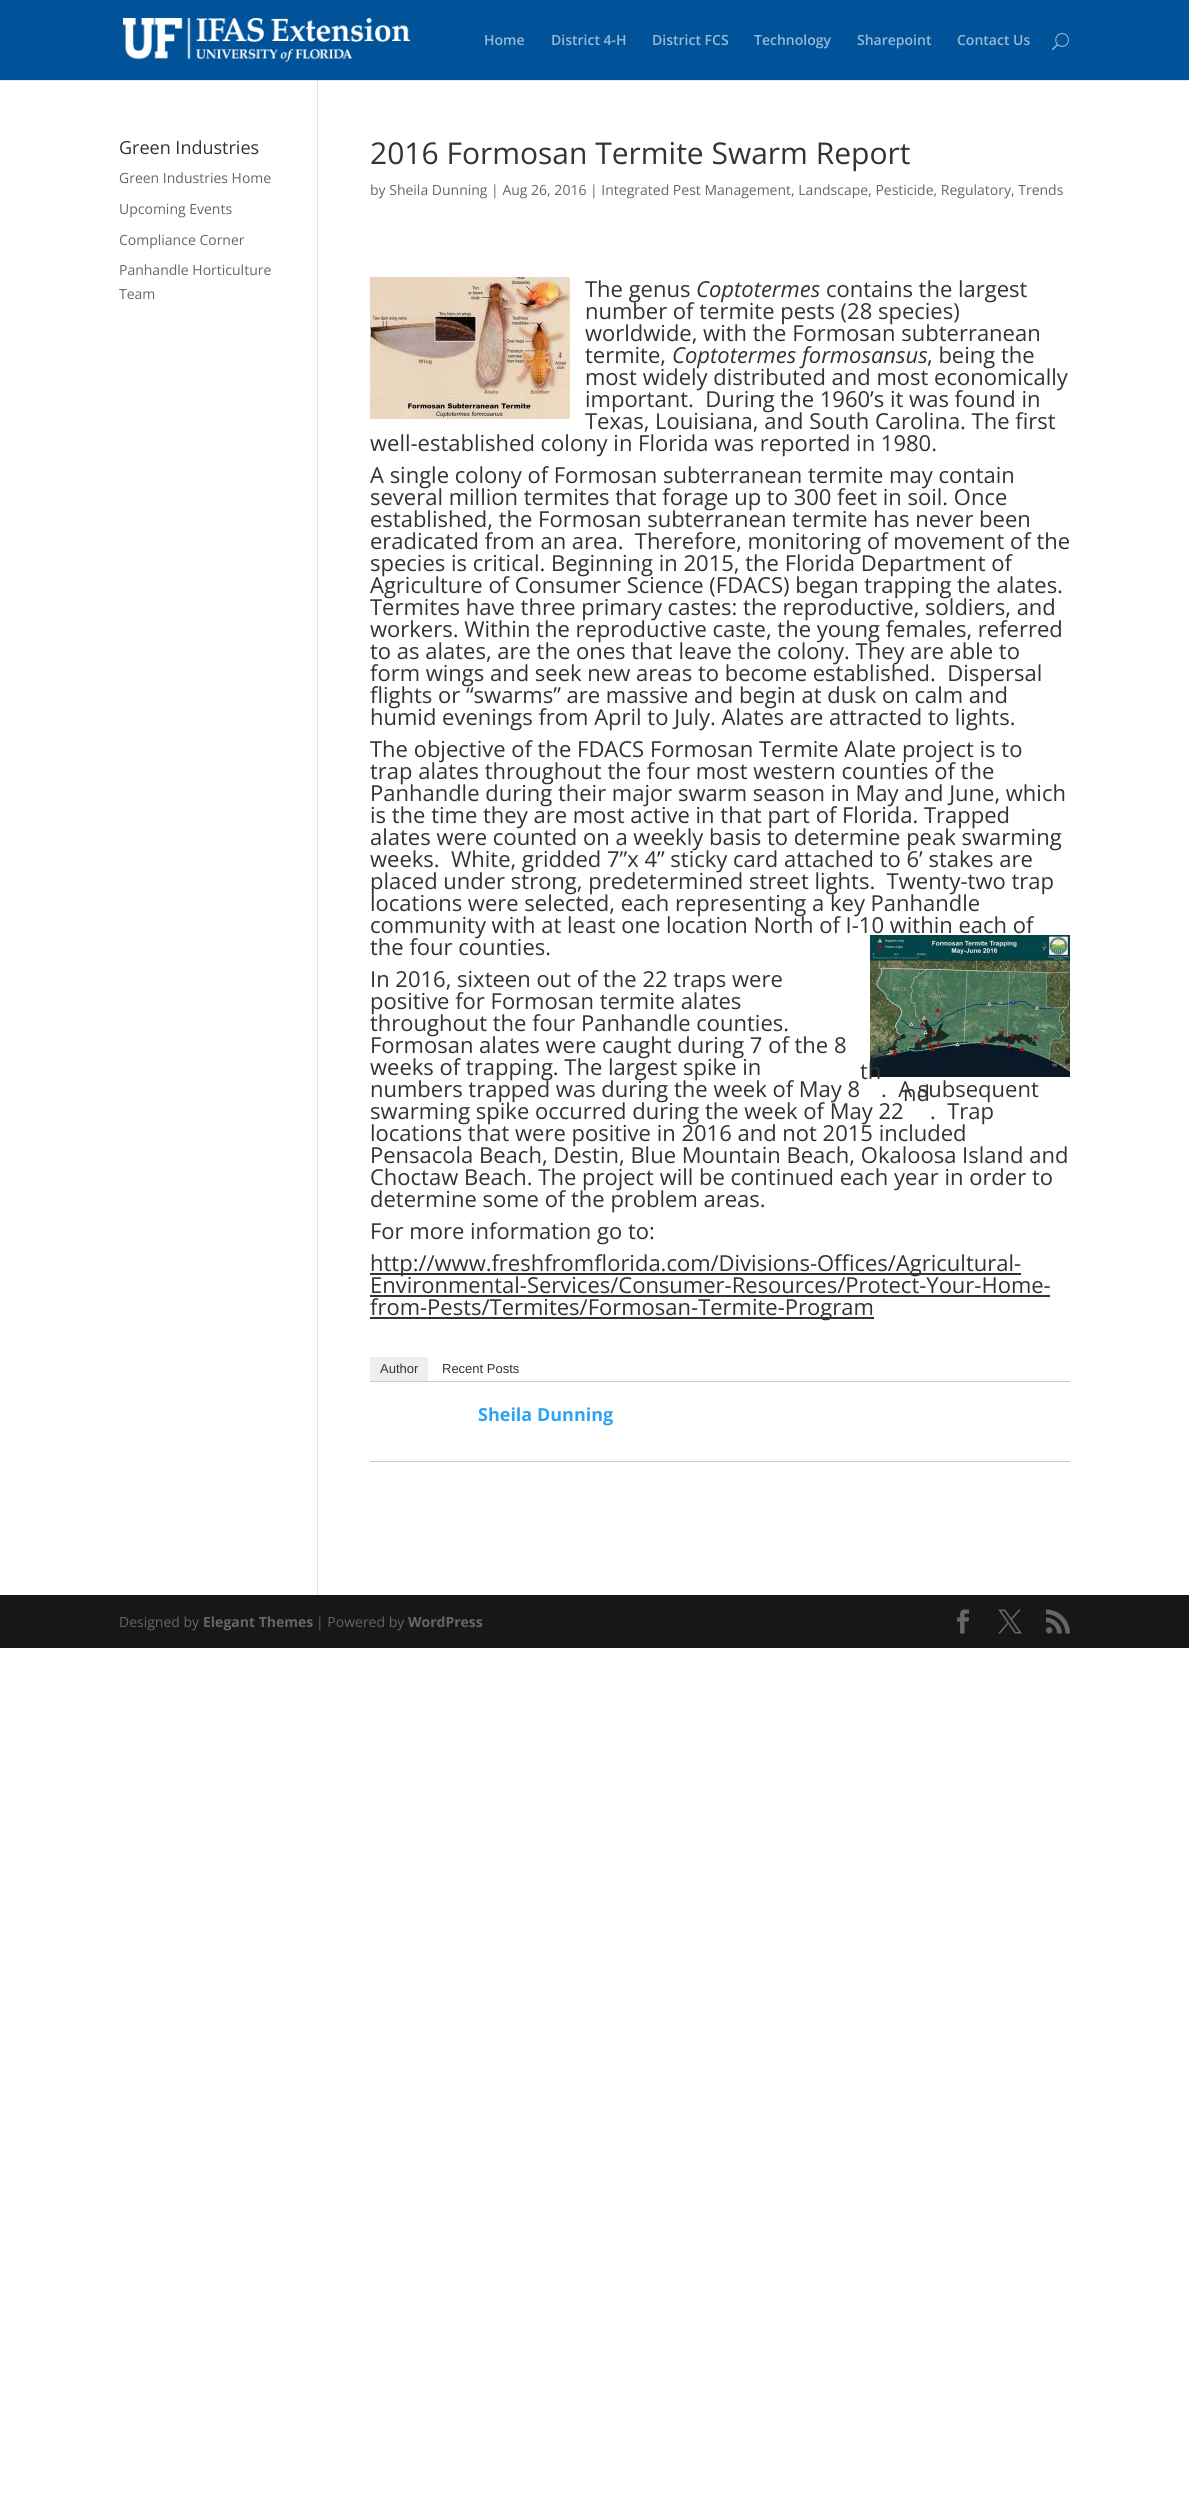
#include <cairo/cairo.h>
#include <math.h>
#include <stddef.h>

typedef struct { double x, y; const char *s; } line_t;
typedef struct { double x, y, w, h; unsigned color; } box_t;
static cairo_t *cr;

static void rgb(unsigned color)
{
	cairo_set_source_rgb(cr, (color >> 16) / 255.0, (color >> 8 & 255) / 255.0, (color & 255) / 255.0);
}

static void image(const char *path, double x, double y, double w, double h)
{
	cairo_surface_t *image = cairo_image_surface_create_from_png(path);
	cairo_save(cr);
	cairo_set_source_surface(cr, image, x, y);
	cairo_rectangle(cr, x, y, w, h);
	cairo_fill(cr);
	cairo_restore(cr);
	cairo_surface_destroy(image);
}

int main(void) {
	cairo_surface_t *surface = cairo_image_surface_create(CAIRO_FORMAT_RGB24, 1189, 2505);
	cr = cairo_create(surface);
	cairo_font_options_t *options = cairo_font_options_create();
	cairo_font_options_set_hint_metrics(options, CAIRO_HINT_METRICS_OFF);
	cairo_font_options_set_hint_style(options, CAIRO_HINT_STYLE_NONE);
	cairo_set_font_options(cr, options);
	cairo_set_miter_limit(cr, 4);
	rgb(0xffffff);
	cairo_paint(cr);
	rgb(0xe6e6e6);
	cairo_rectangle(cr, 0, 80, 1189, 1);
	cairo_fill(cr);
	rgb(0x005299);
	cairo_rectangle(cr, 0, 0, 1189, 80);
	cairo_fill(cr);
	image("img/1.png", 123, 18, 287, 44);
	image("img/2.png", 1052, 33, 17, 18);
	rgb(0xe2e2e2);
	cairo_rectangle(cr, 317, 80, 1, 1515);
	cairo_fill(cr);
	rgb(0xcbcbcb);
	cairo_rectangle(cr, 317, 80, 1, 1);
	cairo_fill(cr);
	image("img/3.png", 370, 277, 200, 142);
	image("img/4.png", 870, 935, 200, 142);
	{
		static const box_t items[] = {
			{370, 1273, 651, 2, 0x333333},
			{370, 1295, 680, 2, 0x333333},
			{370, 1317, 504, 2, 0x333333},
			{370, 1381, 700, 1, 0xcccccc},
			{370, 1357, 58, 24, 0xeeeeee},
			{370, 1461, 700, 1, 0xcccccc},
			{0, 1595, 1189, 53, 0x171717},
		};
		for (size_t i = 0; i < sizeof items / sizeof *items; i++) {
			rgb(items[i].color);
			cairo_rectangle(cr, items[i].x, items[i].y, items[i].w, items[i].h);
			cairo_fill(cr);
		}
	}
	image("img/5.png", 957, 1609, 12, 25);
	image("img/6.png", 998, 1609, 24, 25);
	image("img/7.png", 1046, 1609, 24, 25);
	cairo_select_font_face(cr, "Open Sans SemiBold", CAIRO_FONT_SLANT_NORMAL, CAIRO_FONT_WEIGHT_NORMAL);
	cairo_set_font_size(cr, 14);
	rgb(0x99bad6);
	{
		static const line_t items[] = {
			{484, 45, "Home"},
			{551, 45, "District 4-H"},
			{652, 45, "District FCS"},
			{754, 45, "Technology"},
			{857, 45, "Sharepoint"},
			{957, 45, "Contact Us"},
		};
		for (size_t i = 0; i < sizeof items / sizeof *items; i++) {
			cairo_move_to(cr, items[i].x, items[i].y);
			cairo_show_text(cr, items[i].s);
		}
	}
	cairo_select_font_face(cr, "Open Sans", CAIRO_FONT_SLANT_NORMAL, CAIRO_FONT_WEIGHT_NORMAL);
	cairo_set_font_size(cr, 18);
	rgb(0x333333);
	cairo_move_to(cr, 119, 154);
	cairo_show_text(cr, "Green Industries");
	cairo_set_font_size(cr, 14);
	rgb(0x666666);
	{
		static const line_t items[] = {
			{119, 183, "Green Industries Home"},
			{119, 214, "Upcoming Events"},
			{119, 245, "Compliance Corner"},
			{119, 275, "Panhandle Horticulture"},
			{119, 299, "Team"},
		};
		for (size_t i = 0; i < sizeof items / sizeof *items; i++) {
			cairo_move_to(cr, items[i].x, items[i].y);
			cairo_show_text(cr, items[i].s);
		}
	}
	cairo_set_font_size(cr, 30);
	rgb(0x333333);
	cairo_move_to(cr, 370, 164);
	cairo_show_text(cr, "2016 Formosan Termite Swarm Report");
	cairo_set_font_size(cr, 14);
	rgb(0x666666);
	cairo_move_to(cr, 370, 195);
	cairo_show_text(cr, "by Sheila Dunning | Aug 26, 2016 | Integrated Pest Management, Landscape, Pesticide, Regulatory, Trends");
	cairo_set_font_size(cr, 22);
	rgb(0x333333);
	cairo_move_to(cr, 585, 297);
	cairo_show_text(cr, "The genus");
	cairo_select_font_face(cr, "Open Sans", CAIRO_FONT_SLANT_ITALIC, CAIRO_FONT_WEIGHT_NORMAL);
	cairo_move_to(cr, 696, 297);
	cairo_show_text(cr, "Coptotermes");
	cairo_select_font_face(cr, "Open Sans", CAIRO_FONT_SLANT_NORMAL, CAIRO_FONT_WEIGHT_NORMAL);
	{
		static const line_t items[] = {
			{826, 297, "contains the largest"},
			{585, 319, "number of termite pests (28 species)"},
			{585, 341, "worldwide, with the Formosan subterranean"},
			{585, 363, "termite,"},
		};
		for (size_t i = 0; i < sizeof items / sizeof *items; i++) {
			cairo_move_to(cr, items[i].x, items[i].y);
			cairo_show_text(cr, items[i].s);
		}
	}
	cairo_select_font_face(cr, "Open Sans", CAIRO_FONT_SLANT_ITALIC, CAIRO_FONT_WEIGHT_NORMAL);
	cairo_move_to(cr, 672, 363);
	cairo_show_text(cr, "Coptotermes formosansus");
	cairo_select_font_face(cr, "Open Sans", CAIRO_FONT_SLANT_NORMAL, CAIRO_FONT_WEIGHT_NORMAL);
	{
		static const line_t items[] = {
			{927, 363, ", being the"},
			{585, 385, "most widely distributed and most economically"},
			{585, 407, "important.  During the 1960’s it was found in"},
			{585, 429, "Texas, Louisiana, and South Carolina. The first"},
			{370, 451, "well-established colony in Florida was reported in 1980."},
			{370, 483, "A single colony of Formosan subterranean termite may contain"},
			{370, 505, "several million termites that forage up to 300 feet in soil. Once"},
			{370, 527, "established, the Formosan subterranean termite has never been"},
			{370, 549, "eradicated from an area.  Therefore, monitoring of movement of the"},
			{370, 571, "species is critical. Beginning in 2015, the Florida Department of"},
			{370, 593, "Agriculture of Consumer Science (FDACS) began trapping the alates."},
			{370, 615, "Termites have three primary castes: the reproductive, soldiers, and"},
			{370, 637, "workers. Within the reproductive caste, the young females, referred"},
			{370, 659, "to as alates, are the ones that leave the colony. They are able to"},
			{370, 681, "form wings and seek new areas to become established.  Dispersal"},
			{370, 703, "flights or “swarms” are massive and begin at dusk on calm and"},
			{370, 725, "humid evenings from April to July. Alates are attracted to lights."},
			{370, 757, "The objective of the FDACS Formosan Termite Alate project is to"},
			{370, 779, "trap alates throughout the four most western counties of the"},
			{370, 801, "Panhandle during their major swarm season in May and June, which"},
			{370, 823, "is the time they are most active in that part of Florida. Trapped"},
			{370, 845, "alates were counted on a weekly basis to determine peak swarming"},
			{370, 867, "weeks.  White, gridded 7”x 4” sticky card attached to 6’ stakes are"},
			{370, 889, "placed under strong, predetermined street lights.  Twenty-two trap"},
			{370, 911, "locations were selected, each representing a key Panhandle"},
			{370, 933, "community with at least one location North of I-10 within each of"},
			{370, 955, "the four counties."},
			{370, 987, "In 2016, sixteen out of the 22 traps were"},
			{370, 1009, "positive for Formosan termite alates"},
			{370, 1031, "throughout the four Panhandle counties."},
			{370, 1053, "Formosan alates were caught during 7 of the 8"},
			{370, 1075, "weeks of trapping. The largest spike in"},
			{860, 1079, "th"},
			{370, 1097, "numbers trapped was during the week of May 8"},
			{881, 1097, ".  A subsequent"},
			{903, 1101, "nd"},
			{370, 1119, "swarming spike occurred during the week of May 22"},
			{930, 1119, ".  Trap"},
			{370, 1141, "locations that were positive in 2016 and not 2015 included"},
			{370, 1163, "Pensacola Beach, Destin, Blue Mountain Beach, Okaloosa Island and"},
			{370, 1185, "Choctaw Beach. The project will be continued each year in order to"},
			{370, 1207, "determine some of the problem areas."},
			{370, 1239, "For more information go to:"},
			{370, 1271, "http://www.freshfromflorida.com/Divisions-Offices/Agricultural-"},
			{370, 1293, "Environmental-Services/Consumer-Resources/Protect-Your-Home-"},
			{370, 1315, "from-Pests/Termites/Formosan-Termite-Program"},
		};
		for (size_t i = 0; i < sizeof items / sizeof *items; i++) {
			cairo_move_to(cr, items[i].x, items[i].y);
			cairo_show_text(cr, items[i].s);
		}
	}
	cairo_select_font_face(cr, "Liberation Sans", CAIRO_FONT_SLANT_NORMAL, CAIRO_FONT_WEIGHT_NORMAL);
	cairo_set_font_size(cr, 13);
	cairo_move_to(cr, 380, 1373);
	cairo_show_text(cr, "Author");
	cairo_move_to(cr, 442, 1373);
	cairo_show_text(cr, "Recent Posts");
	cairo_select_font_face(cr, "Open Sans", CAIRO_FONT_SLANT_NORMAL, CAIRO_FONT_WEIGHT_BOLD);
	cairo_set_font_size(cr, 18);
	rgb(0x2ea3f2);
	cairo_move_to(cr, 478, 1421);
	cairo_show_text(cr, "Sheila Dunning");
	cairo_select_font_face(cr, "Open Sans", CAIRO_FONT_SLANT_NORMAL, CAIRO_FONT_WEIGHT_NORMAL);
	cairo_set_font_size(cr, 14);
	rgb(0x666666);
	cairo_move_to(cr, 119, 1627);
	cairo_show_text(cr, "Designed by");
	cairo_select_font_face(cr, "Open Sans", CAIRO_FONT_SLANT_NORMAL, CAIRO_FONT_WEIGHT_BOLD);
	cairo_move_to(cr, 203, 1627);
	cairo_show_text(cr, "Elegant Themes");
	cairo_select_font_face(cr, "Open Sans", CAIRO_FONT_SLANT_NORMAL, CAIRO_FONT_WEIGHT_NORMAL);
	cairo_move_to(cr, 316, 1627);
	cairo_show_text(cr, "| Powered by");
	cairo_select_font_face(cr, "Open Sans", CAIRO_FONT_SLANT_NORMAL, CAIRO_FONT_WEIGHT_BOLD);
	cairo_move_to(cr, 408, 1627);
	cairo_show_text(cr, "WordPress");
	cairo_surface_write_to_png(surface, "page.png");
	cairo_font_options_destroy(options);
	cairo_destroy(cr);
	cairo_surface_destroy(surface);
	return 0;
}
